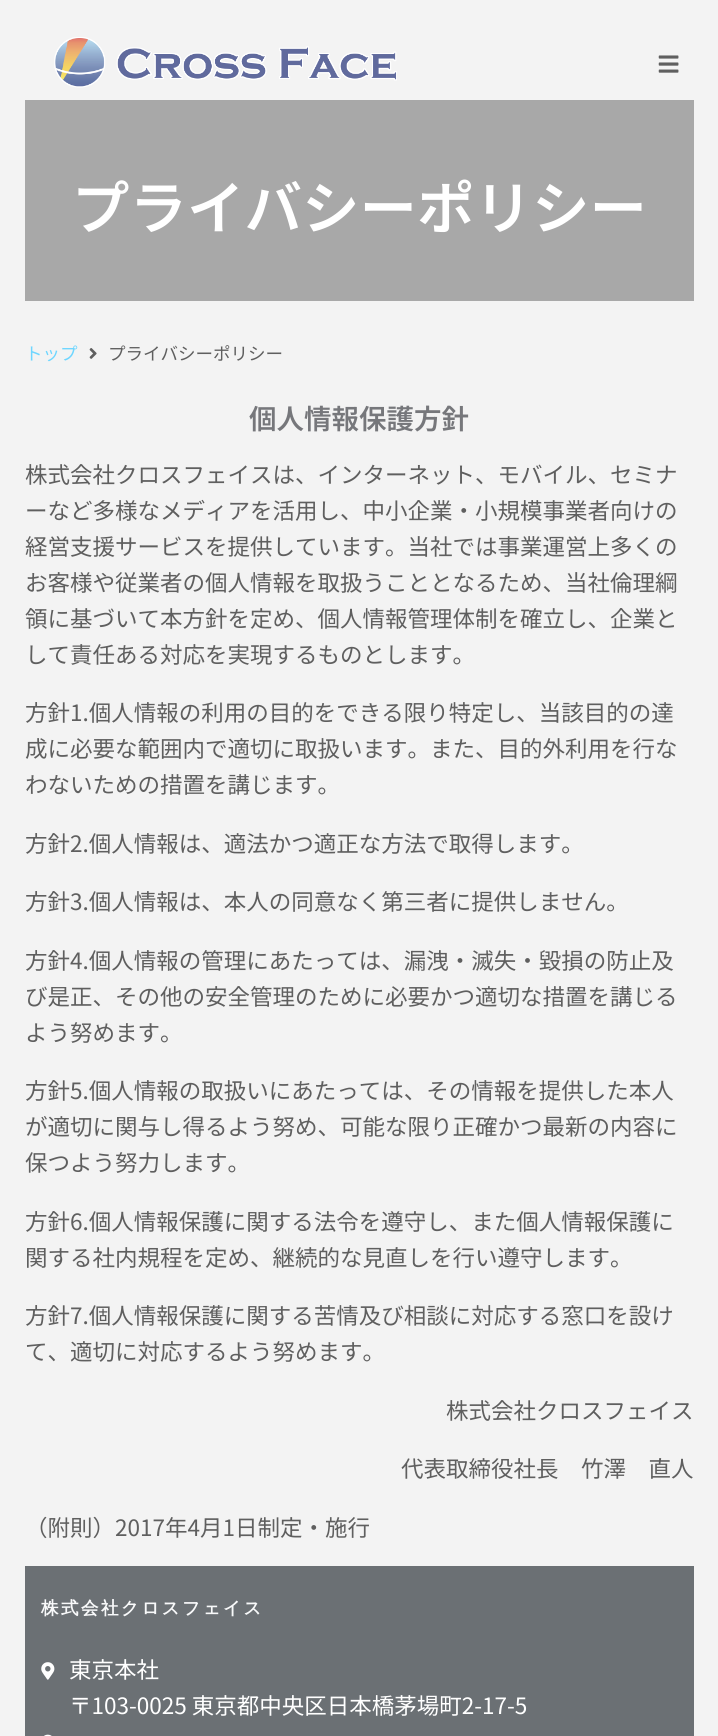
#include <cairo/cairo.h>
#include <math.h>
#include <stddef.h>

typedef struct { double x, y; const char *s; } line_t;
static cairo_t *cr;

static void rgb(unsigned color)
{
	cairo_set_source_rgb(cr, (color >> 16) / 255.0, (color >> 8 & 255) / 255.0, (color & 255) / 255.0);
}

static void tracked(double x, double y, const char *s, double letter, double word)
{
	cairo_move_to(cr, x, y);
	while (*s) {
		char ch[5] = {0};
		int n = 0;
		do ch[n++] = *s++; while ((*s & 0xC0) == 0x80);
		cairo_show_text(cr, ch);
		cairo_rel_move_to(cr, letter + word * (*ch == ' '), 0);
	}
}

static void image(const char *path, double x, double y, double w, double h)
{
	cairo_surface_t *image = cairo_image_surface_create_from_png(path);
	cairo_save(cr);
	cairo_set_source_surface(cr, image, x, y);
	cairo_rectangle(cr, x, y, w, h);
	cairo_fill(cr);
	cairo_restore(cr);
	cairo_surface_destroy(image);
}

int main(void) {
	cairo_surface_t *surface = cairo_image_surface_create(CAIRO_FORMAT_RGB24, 718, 1736);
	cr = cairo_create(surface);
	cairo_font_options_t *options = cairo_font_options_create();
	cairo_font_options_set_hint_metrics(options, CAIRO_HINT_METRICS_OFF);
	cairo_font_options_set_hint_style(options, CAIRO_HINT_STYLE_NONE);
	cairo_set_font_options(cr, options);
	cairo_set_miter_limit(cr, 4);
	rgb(0xf3f3f3);
	cairo_paint(cr);
	image("img/1.png", 54, 37, 343, 51);
	image("img/2.png", 658, 55, 21, 18);
	rgb(0xa8a8a8);
	cairo_rectangle(cr, 25, 100, 669, 201);
	cairo_fill(cr);
	image("img/3.png", 89, 348, 8, 11);
	rgb(0x6b7074);
	cairo_rectangle(cr, 25, 1566, 669, 170);
	cairo_fill(cr);
	image("img/4.png", 41, 1662, 14, 18);
	image("img/5.png", 44, 1734, 8, 2);
	cairo_select_font_face(cr, "Noto Sans JP SemiBold", CAIRO_FONT_SLANT_NORMAL, CAIRO_FONT_WEIGHT_NORMAL);
	cairo_set_font_size(cr, 57.5);
	rgb(0xffffff);
	cairo_move_to(cr, 72, 229);
	cairo_show_text(cr, "プライバシーポリシー");
	cairo_select_font_face(cr, "Noto Sans JP", CAIRO_FONT_SLANT_NORMAL, CAIRO_FONT_WEIGHT_NORMAL);
	cairo_set_font_size(cr, 17.5);
	rgb(0x6ed6ff);
	cairo_move_to(cr, 25, 360);
	cairo_show_text(cr, "トップ");
	rgb(0x5f5f5f);
	cairo_move_to(cr, 108, 360);
	cairo_show_text(cr, "プライバシーポリシー");
	cairo_select_font_face(cr, "Noto Sans JP SemiBold", CAIRO_FONT_SLANT_NORMAL, CAIRO_FONT_WEIGHT_NORMAL);
	cairo_set_font_size(cr, 27.5);
	rgb(0x76777b);
	cairo_move_to(cr, 249, 429);
	cairo_show_text(cr, "個人情報保護方針");
	cairo_select_font_face(cr, "Noto Sans JP", CAIRO_FONT_SLANT_NORMAL, CAIRO_FONT_WEIGHT_NORMAL);
	cairo_set_font_size(cr, 22.5);
	rgb(0x5f5f5f);
	{
		static const line_t items[] = {
			{25, 483, "株式会社クロスフェイスは、インターネット、モバイル、セミナ"},
			{25, 519, "ーなど多様なメディアを活用し、中小企業・小規模事業者向けの"},
			{25, 555, "経営支援サービスを提供しています。当社では事業運営上多くの"},
			{25, 591, "お客様や従業者の個人情報を取扱うこととなるため、当社倫理綱"},
			{25, 627, "領に基づいて本方針を定め、個人情報管理体制を確立し、企業と"},
			{25, 663, "して責任ある対応を実現するものとします。"},
			{25, 721, "方針1.個人情報の利用の目的をできる限り特定し、当該目的の達"},
			{25, 757, "成に必要な範囲内で適切に取扱います。また、目的外利用を行な"},
			{25, 793, "わないための措置を講じます。"},
			{25, 852, "方針2.個人情報は、適法かつ適正な方法で取得します。"},
			{25, 910, "方針3.個人情報は、本人の同意なく第三者に提供しません。"},
			{25, 969, "方針4.個人情報の管理にあたっては、漏洩・滅失・毀損の防止及"},
			{25, 1005, "び是正、その他の安全管理のために必要かつ適切な措置を講じる"},
			{25, 1041, "よう努めます。"},
			{25, 1099, "方針5.個人情報の取扱いにあたっては、その情報を提供した本人"},
			{25, 1135, "が適切に関与し得るよう努め、可能な限り正確かつ最新の内容に"},
			{25, 1171, "保つよう努力します。"},
			{25, 1230, "方針6.個人情報保護に関する法令を遵守し、また個人情報保護に"},
			{25, 1266, "関する社内規程を定め、継続的な見直しを行い遵守します。"},
			{25, 1324, "方針7.個人情報保護に関する苦情及び相談に対応する窓口を設け"},
			{25, 1360, "て、適切に対応するよう努めます。"},
			{446, 1419, "株式会社クロスフェイス"},
			{401, 1477, "代表取締役社長　竹澤　直人"},
			{25, 1536, "（附則）2017年4月1日制定・施行"},
		};
		for (size_t i = 0; i < sizeof items / sizeof *items; i++) {
			cairo_move_to(cr, items[i].x, items[i].y);
			cairo_show_text(cr, items[i].s);
		}
	}
	cairo_select_font_face(cr, "WenQuanYi Zen Hei", CAIRO_FONT_SLANT_NORMAL, CAIRO_FONT_WEIGHT_BOLD);
	cairo_set_font_size(cr, 17.5);
	rgb(0xf8f9fa);
	tracked(41, 1614, "株式会社クロスフェイス", 2.5, 0);
	cairo_select_font_face(cr, "Noto Sans JP", CAIRO_FONT_SLANT_NORMAL, CAIRO_FONT_WEIGHT_NORMAL);
	cairo_set_font_size(cr, 22.5);
	rgb(0xffffff);
	cairo_move_to(cr, 69, 1678);
	cairo_show_text(cr, "東京本社");
	cairo_move_to(cr, 69, 1714);
	cairo_show_text(cr, "〒103-0025 東京都中央区日本橋茅場町2-17-5");
	cairo_surface_write_to_png(surface, "page.png");
	cairo_font_options_destroy(options);
	cairo_destroy(cr);
	cairo_surface_destroy(surface);
	return 0;
}
